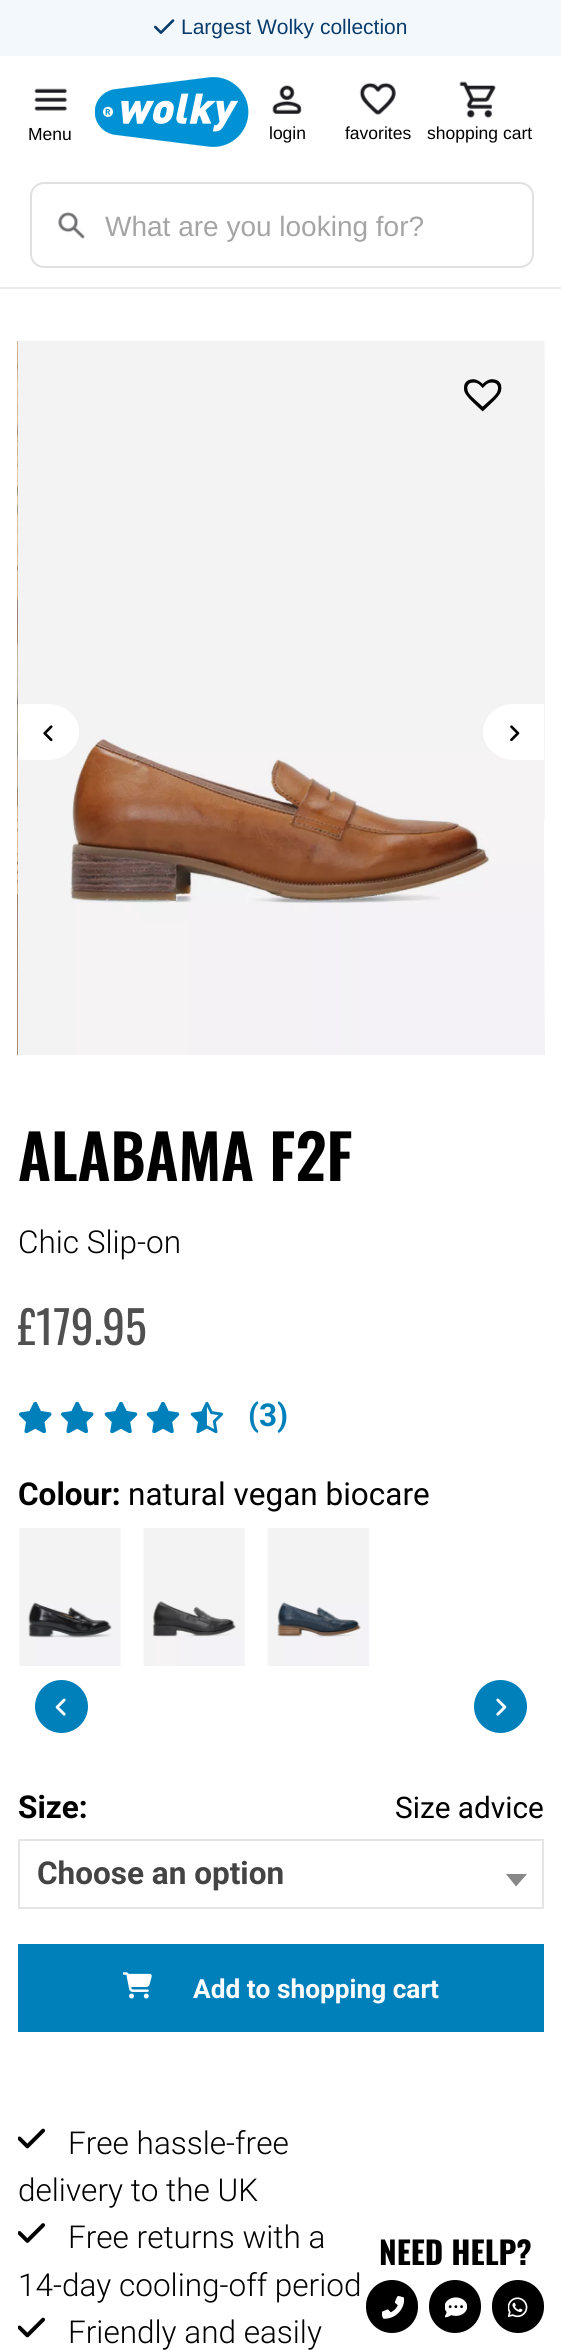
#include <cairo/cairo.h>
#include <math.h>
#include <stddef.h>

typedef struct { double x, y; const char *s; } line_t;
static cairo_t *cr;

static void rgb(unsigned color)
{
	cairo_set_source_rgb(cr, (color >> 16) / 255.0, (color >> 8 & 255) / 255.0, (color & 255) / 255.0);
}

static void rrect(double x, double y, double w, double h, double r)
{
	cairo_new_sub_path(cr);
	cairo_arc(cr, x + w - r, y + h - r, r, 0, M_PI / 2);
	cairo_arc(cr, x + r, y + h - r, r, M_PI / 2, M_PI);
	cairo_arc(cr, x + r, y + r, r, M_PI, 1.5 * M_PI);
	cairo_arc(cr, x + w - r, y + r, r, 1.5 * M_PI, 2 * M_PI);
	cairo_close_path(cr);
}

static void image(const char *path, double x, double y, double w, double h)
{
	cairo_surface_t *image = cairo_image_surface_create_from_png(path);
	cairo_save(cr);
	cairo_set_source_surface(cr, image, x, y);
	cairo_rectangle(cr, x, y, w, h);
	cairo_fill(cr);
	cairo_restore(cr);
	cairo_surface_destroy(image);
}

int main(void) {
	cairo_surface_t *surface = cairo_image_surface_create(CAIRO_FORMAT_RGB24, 561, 2350);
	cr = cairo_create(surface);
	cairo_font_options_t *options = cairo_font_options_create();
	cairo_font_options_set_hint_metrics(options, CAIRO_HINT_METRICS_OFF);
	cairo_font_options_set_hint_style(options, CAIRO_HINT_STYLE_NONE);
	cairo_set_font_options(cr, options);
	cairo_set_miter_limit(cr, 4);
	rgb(0xffffff);
	cairo_paint(cr);
	rgb(0xf3f8fd);
	cairo_rectangle(cr, 0, 0, 561, 56);
	cairo_fill(cr);
	image("img/1.png", 154, 19, 21, 15);
	image("img/2.png", 34, 88, 33, 23);
	image("img/3.png", 95, 77, 154, 70);
	image("img/4.png", 272, 85, 30, 29);
	image("img/5.png", 359, 82, 37, 33);
	image("img/6.png", 459, 81, 37, 37);
	rgb(0xebebeb);
	cairo_rectangle(cr, 0, 287, 561, 2);
	cairo_fill(cr);
	rrect(31, 183, 502, 84, 13);
	rgb(0xe0e0e0);
	cairo_stroke(cr);
	image("img/7.png", 58, 212, 27, 27);
	image("img/8.png", 17, 341, 1, 715);
	image("img/9.png", 18, 341, 527, 714);
	image("img/10.png", 544, 341, 1, 714);
	rgb(0xffffff);
	cairo_new_path(cr);
	cairo_move_to(cr, 18, 704);
	cairo_line_to(cr, 48, 704);
	cairo_curve_to(cr, 65, 704, 79, 716, 79, 732);
	cairo_curve_to(cr, 79, 747, 65, 760, 48, 760);
	cairo_line_to(cr, 18, 760);
	cairo_close_path(cr);
	cairo_fill(cr);
	image("img/11.png", 43, 725, 10, 17);
	cairo_new_path(cr);
	cairo_move_to(cr, 514, 704);
	cairo_line_to(cr, 544, 704);
	cairo_line_to(cr, 544, 760);
	cairo_line_to(cr, 514, 760);
	cairo_curve_to(cr, 497, 760, 483, 747, 483, 732);
	cairo_curve_to(cr, 483, 716, 497, 704, 514, 704);
	cairo_close_path(cr);
	cairo_fill(cr);
	image("img/12.png", 510, 725, 10, 17);
	image("img/13.png", 464, 379, 38, 33);
	image("img/14.png", 19, 1402, 33, 31);
	image("img/14.png", 61, 1402, 33, 31);
	image("img/15.png", 104, 1402, 34, 31);
	image("img/15.png", 146, 1402, 34, 31);
	image("img/16.png", 190, 1402, 34, 31);
	image("img/17.png", 19, 1528, 102, 138);
	image("img/18.png", 143, 1528, 102, 138);
	image("img/19.png", 267, 1528, 103, 138);
	rgb(0x0080bb);
	cairo_arc(cr, 61.5, 1706.5, 26.5, 0, 2 * M_PI);
	cairo_fill(cr);
	image("img/20.png", 55, 1698, 11, 18);
	cairo_arc(cr, 500.5, 1706.5, 26.5, 0, 2 * M_PI);
	cairo_fill(cr);
	image("img/21.png", 496, 1698, 11, 18);
	cairo_rectangle(cr, 19, 1840, 524, 68);
	rgb(0xe5e5e5);
	cairo_stroke(cr);
	rgb(0x888888);
	cairo_new_path(cr);
	cairo_move_to(cr, 506, 1874);
	cairo_line_to(cr, 527, 1874);
	cairo_line_to(cr, 516, 1886.5);
	cairo_close_path(cr);
	cairo_fill(cr);
	rgb(0x0080bb);
	cairo_rectangle(cr, 18, 1944, 526, 88);
	cairo_fill(cr);
	image("img/22.png", 123, 1972, 29, 27);
	image("img/23.png", 18, 2128, 27, 21);
	image("img/24.png", 18, 2223, 27, 20);
	image("img/23.png", 18, 2317, 27, 21);
	rgb(0x000000);
	rrect(366, 2280, 52, 53, 26);
	cairo_fill(cr);
	image("img/25.png", 382, 2296, 22, 23);
	rrect(429, 2280, 52, 53, 26);
	cairo_fill(cr);
	image("img/26.png", 445, 2297, 22, 21);
	rrect(492, 2280, 52, 53, 26);
	cairo_fill(cr);
	image("img/27.png", 508, 2297, 20, 21);
	cairo_select_font_face(cr, "Liberation Sans", CAIRO_FONT_SLANT_NORMAL, CAIRO_FONT_WEIGHT_NORMAL);
	cairo_set_font_size(cr, 21);
	rgb(0x093c6b);
	cairo_move_to(cr, 181, 34);
	cairo_show_text(cr, "Largest Wolky collection");
	cairo_set_font_size(cr, 17.5);
	rgb(0x000000);
	{
		static const line_t items[] = {
			{28, 140, "Menu"},
			{269, 139, "login"},
			{345, 139, "favorites"},
			{427, 139, "shopping cart"},
		};
		for (size_t i = 0; i < sizeof items / sizeof *items; i++) {
			cairo_move_to(cr, items[i].x, items[i].y);
			cairo_show_text(cr, items[i].s);
		}
	}
	cairo_set_font_size(cr, 28);
	rgb(0xa5a5a5);
	cairo_move_to(cr, 105, 236);
	cairo_show_text(cr, "What are you looking for?");
	cairo_select_font_face(cr, "Oswald SemiBold", CAIRO_FONT_SLANT_NORMAL, CAIRO_FONT_WEIGHT_NORMAL);
	cairo_set_font_size(cr, 61.25);
	rgb(0x000000);
	cairo_move_to(cr, 18, 1181);
	cairo_show_text(cr, "ALABAMA F2F");
	cairo_select_font_face(cr, "Roboto Light", CAIRO_FONT_SLANT_NORMAL, CAIRO_FONT_WEIGHT_NORMAL);
	cairo_set_font_size(cr, 31.5);
	cairo_move_to(cr, 18, 1253);
	cairo_show_text(cr, "Chic Slip-on");
	cairo_select_font_face(cr, "Oswald", CAIRO_FONT_SLANT_NORMAL, CAIRO_FONT_WEIGHT_NORMAL);
	cairo_set_font_size(cr, 45.5);
	rgb(0x505050);
	cairo_move_to(cr, 18, 1345);
	cairo_show_text(cr, "£179.95");
	cairo_select_font_face(cr, "Roboto", CAIRO_FONT_SLANT_NORMAL, CAIRO_FONT_WEIGHT_BOLD);
	cairo_set_font_size(cr, 31.5);
	rgb(0x0080bb);
	cairo_move_to(cr, 248, 1426);
	cairo_show_text(cr, "(3)");
	rgb(0x000000);
	cairo_move_to(cr, 18, 1505);
	cairo_show_text(cr, "Colour:");
	cairo_select_font_face(cr, "Roboto", CAIRO_FONT_SLANT_NORMAL, CAIRO_FONT_WEIGHT_NORMAL);
	cairo_move_to(cr, 128, 1505);
	cairo_show_text(cr, "natural vegan biocare");
	cairo_select_font_face(cr, "Roboto", CAIRO_FONT_SLANT_NORMAL, CAIRO_FONT_WEIGHT_BOLD);
	cairo_move_to(cr, 18, 1818);
	cairo_show_text(cr, "Size:");
	cairo_select_font_face(cr, "Roboto", CAIRO_FONT_SLANT_NORMAL, CAIRO_FONT_WEIGHT_NORMAL);
	cairo_set_font_size(cr, 29.75);
	cairo_move_to(cr, 395, 1818);
	cairo_show_text(cr, "Size advice");
	cairo_select_font_face(cr, "Roboto", CAIRO_FONT_SLANT_NORMAL, CAIRO_FONT_WEIGHT_BOLD);
	cairo_set_font_size(cr, 31.5);
	rgb(0x444444);
	cairo_move_to(cr, 37, 1884);
	cairo_show_text(cr, "Choose an option");
	cairo_set_font_size(cr, 26.25);
	rgb(0xffffff);
	cairo_move_to(cr, 193, 1998);
	cairo_show_text(cr, "Add to shopping cart");
	cairo_select_font_face(cr, "Roboto Light", CAIRO_FONT_SLANT_NORMAL, CAIRO_FONT_WEIGHT_NORMAL);
	cairo_set_font_size(cr, 31.5);
	rgb(0x000000);
	{
		static const line_t items[] = {
			{68, 2154, "Free hassle-free"},
			{18, 2201, "delivery to the UK"},
			{68, 2248, "Free returns with a"},
			{18, 2296, "14-day cooling-off period"},
			{68, 2343, "Friendly and easily"},
		};
		for (size_t i = 0; i < sizeof items / sizeof *items; i++) {
			cairo_move_to(cr, items[i].x, items[i].y);
			cairo_show_text(cr, items[i].s);
		}
	}
	cairo_select_font_face(cr, "Oswald", CAIRO_FONT_SLANT_NORMAL, CAIRO_FONT_WEIGHT_BOLD);
	cairo_move_to(cr, 379, 2265);
	cairo_show_text(cr, "NEED HELP?");
	cairo_surface_write_to_png(surface, "page.png");
	cairo_font_options_destroy(options);
	cairo_destroy(cr);
	cairo_surface_destroy(surface);
	return 0;
}
